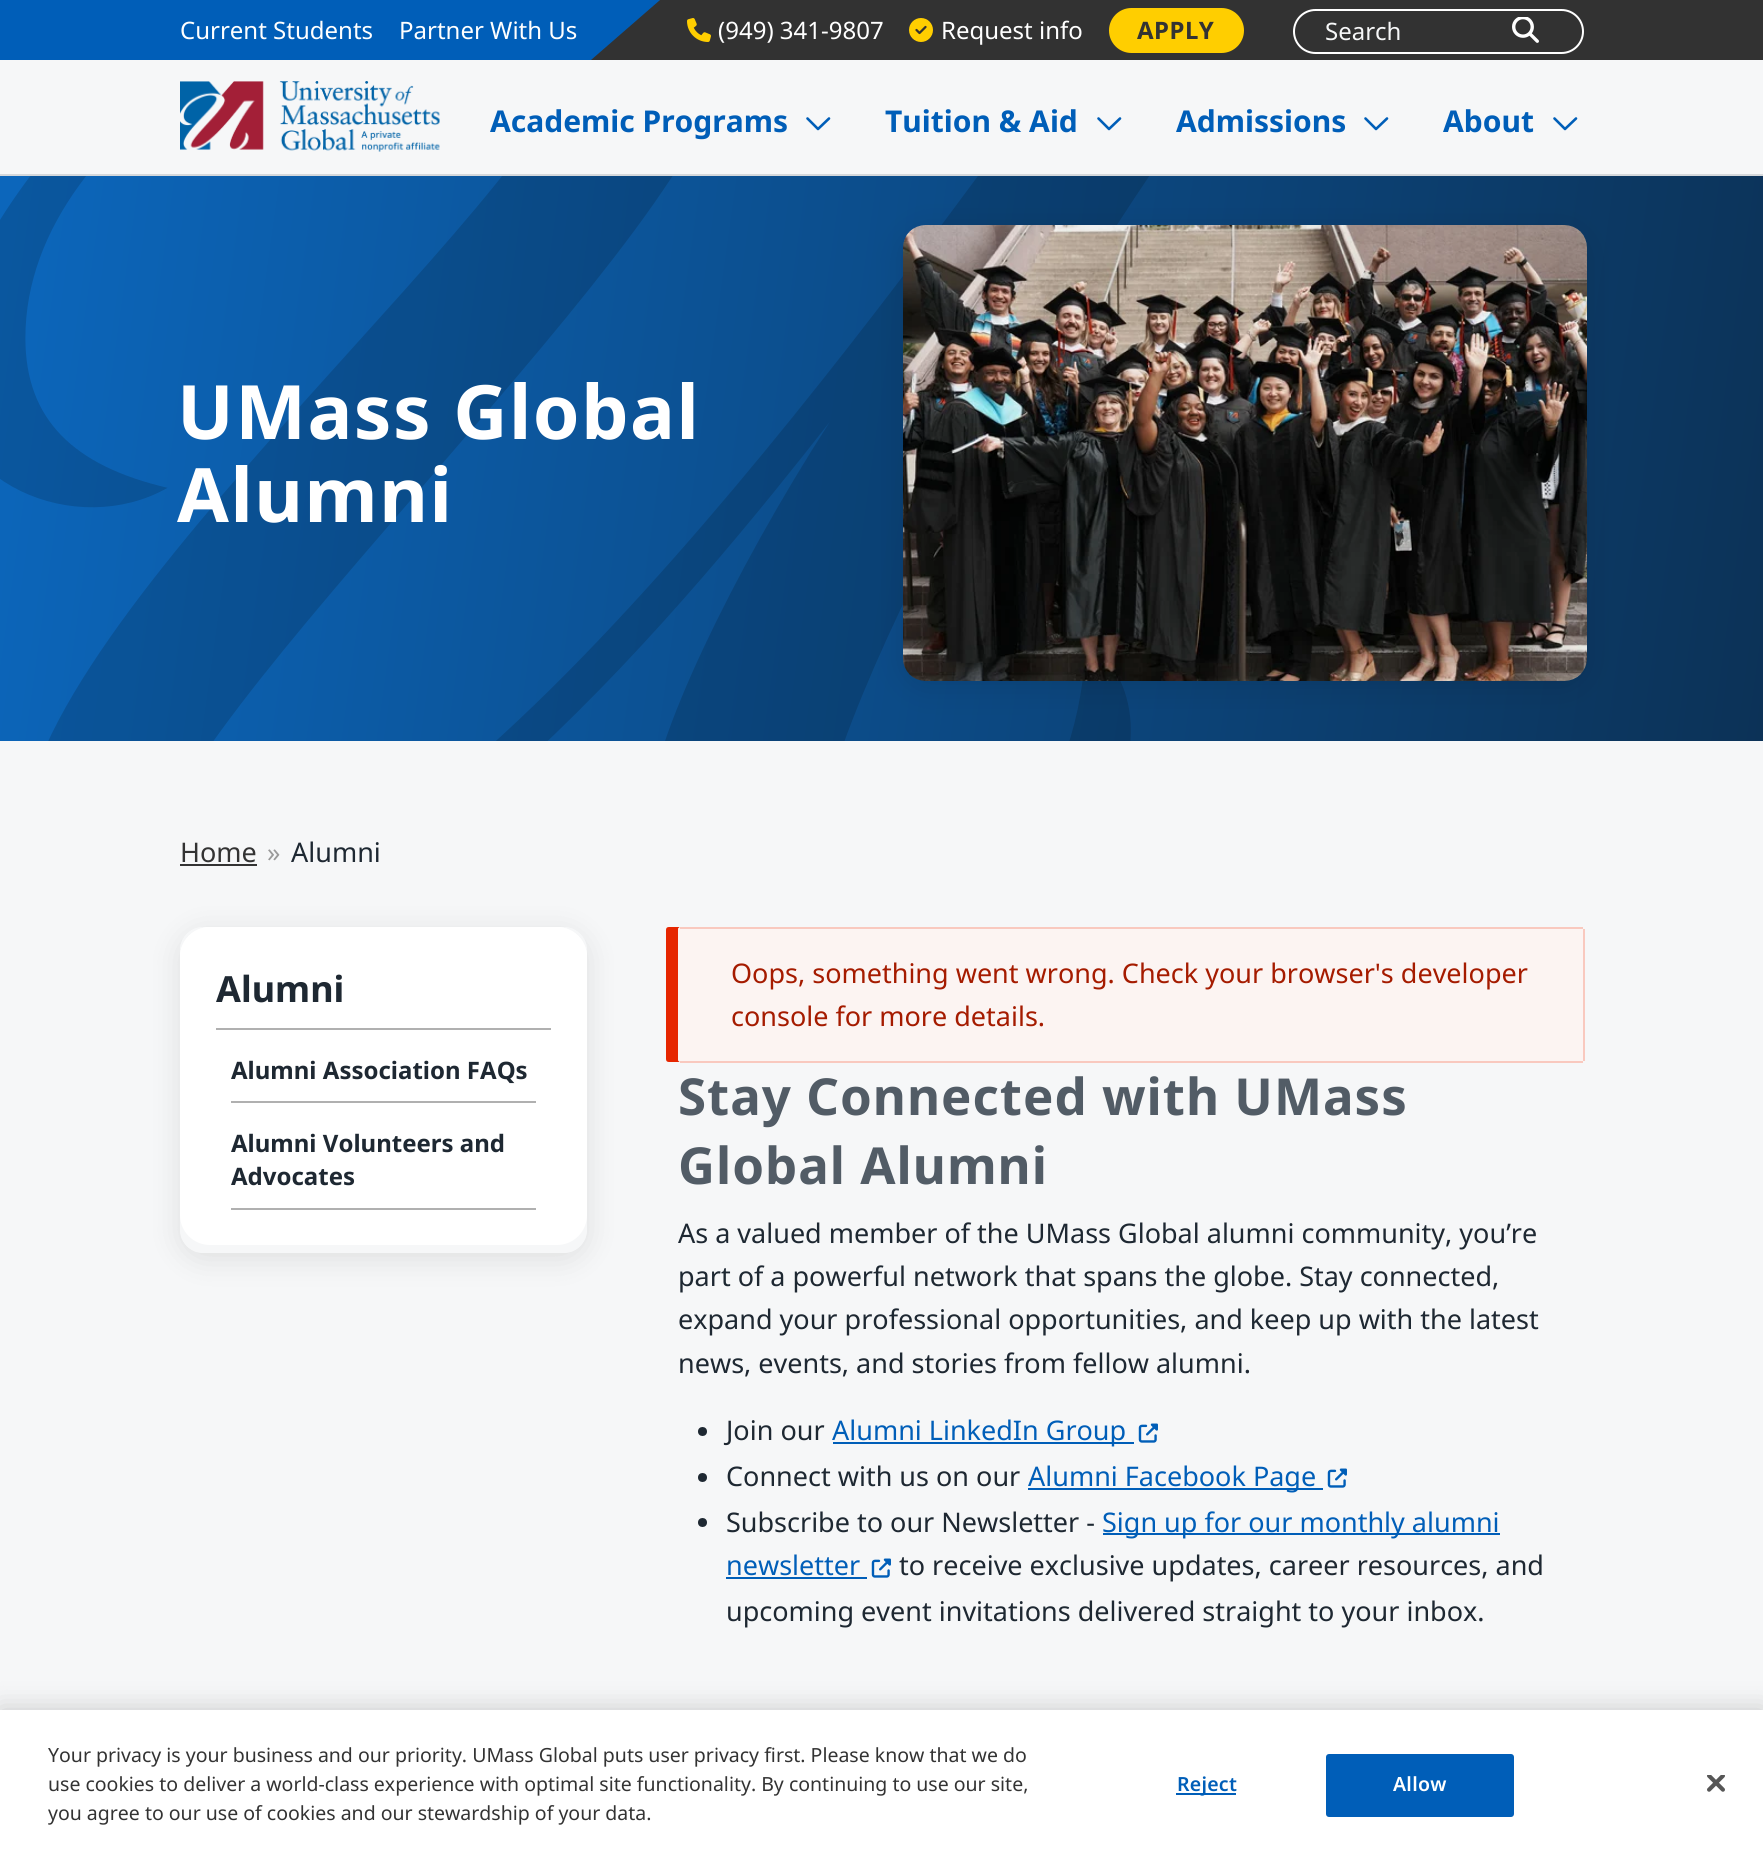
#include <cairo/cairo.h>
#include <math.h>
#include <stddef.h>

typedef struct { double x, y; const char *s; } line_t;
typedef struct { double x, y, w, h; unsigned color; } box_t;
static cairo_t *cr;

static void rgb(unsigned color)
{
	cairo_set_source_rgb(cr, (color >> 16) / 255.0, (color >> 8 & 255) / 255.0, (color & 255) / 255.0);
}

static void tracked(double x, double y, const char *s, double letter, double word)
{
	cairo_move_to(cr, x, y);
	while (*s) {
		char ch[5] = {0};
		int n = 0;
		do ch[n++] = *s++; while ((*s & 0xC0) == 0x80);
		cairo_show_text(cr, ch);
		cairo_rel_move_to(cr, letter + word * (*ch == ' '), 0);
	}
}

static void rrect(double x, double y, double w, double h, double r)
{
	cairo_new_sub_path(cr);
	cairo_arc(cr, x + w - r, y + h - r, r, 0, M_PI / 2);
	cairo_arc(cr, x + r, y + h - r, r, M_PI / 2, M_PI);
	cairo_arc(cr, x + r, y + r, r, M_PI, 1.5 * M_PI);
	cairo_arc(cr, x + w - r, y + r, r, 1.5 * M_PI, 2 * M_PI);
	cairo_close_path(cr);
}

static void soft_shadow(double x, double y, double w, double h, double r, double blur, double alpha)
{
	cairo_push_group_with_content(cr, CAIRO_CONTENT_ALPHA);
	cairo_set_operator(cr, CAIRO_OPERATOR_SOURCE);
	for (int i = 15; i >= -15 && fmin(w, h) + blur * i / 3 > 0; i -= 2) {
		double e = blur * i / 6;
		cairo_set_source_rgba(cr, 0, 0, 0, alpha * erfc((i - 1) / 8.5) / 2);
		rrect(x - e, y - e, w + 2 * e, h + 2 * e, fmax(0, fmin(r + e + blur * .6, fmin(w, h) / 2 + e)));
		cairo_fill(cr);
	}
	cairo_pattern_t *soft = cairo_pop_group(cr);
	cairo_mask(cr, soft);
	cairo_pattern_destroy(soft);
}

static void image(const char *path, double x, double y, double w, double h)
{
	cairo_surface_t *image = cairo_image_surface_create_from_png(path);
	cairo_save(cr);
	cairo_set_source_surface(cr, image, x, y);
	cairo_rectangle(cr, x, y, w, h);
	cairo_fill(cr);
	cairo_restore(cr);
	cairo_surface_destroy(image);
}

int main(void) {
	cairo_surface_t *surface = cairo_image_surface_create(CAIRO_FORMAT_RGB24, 1763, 1862);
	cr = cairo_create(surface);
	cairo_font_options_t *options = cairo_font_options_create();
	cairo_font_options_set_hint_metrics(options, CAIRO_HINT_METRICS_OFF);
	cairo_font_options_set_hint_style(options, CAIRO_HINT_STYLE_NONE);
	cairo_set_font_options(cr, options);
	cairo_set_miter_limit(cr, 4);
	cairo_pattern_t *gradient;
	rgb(0xf6f7f8);
	cairo_paint(cr);
	rgb(0x323232);
	cairo_rectangle(cr, 591, 0, 1172, 60);
	cairo_fill(cr);
	rgb(0x005eb8);
	cairo_new_path(cr);
	cairo_move_to(cr, -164, 0);
	cairo_line_to(cr, 660, 0);
	cairo_line_to(cr, 591, 60);
	cairo_line_to(cr, -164, 60);
	cairo_close_path(cr);
	cairo_fill(cr);
	image("img/1.png", 687, 18, 24, 24);
	image("img/2.png", 909, 18, 24, 24);
	rgb(0xffce00);
	rrect(1109, 8, 135, 45, 22.5);
	cairo_fill(cr);
	rrect(1294, 10, 289, 43, 21.5);
	rgb(0xffffff);
	cairo_stroke(cr);
	image("img/3.png", 1512, 17, 27, 26);
	rgb(0xd5d8db);
	cairo_rectangle(cr, 0, 174, 1763, 2);
	cairo_fill(cr);
	image("img/4.png", 180, 81, 260, 71);
	cairo_new_path(cr);
	cairo_move_to(cr, 829, 118.5);
	cairo_line_to(cr, 818, 129);
	cairo_line_to(cr, 807.5, 118.5);
	rgb(0x005eb8);
	cairo_set_line_width(cr, 2.6);
	cairo_set_line_cap(cr, CAIRO_LINE_CAP_ROUND);
	cairo_set_line_join(cr, CAIRO_LINE_JOIN_ROUND);
	cairo_stroke(cr);
	cairo_new_path(cr);
	cairo_move_to(cr, 1120, 118.5);
	cairo_line_to(cr, 1109, 129);
	cairo_line_to(cr, 1098.5, 118.5);
	cairo_stroke(cr);
	cairo_new_path(cr);
	cairo_move_to(cr, 1387, 118.5);
	cairo_line_to(cr, 1376, 129);
	cairo_line_to(cr, 1365.5, 118.5);
	cairo_stroke(cr);
	cairo_new_path(cr);
	cairo_move_to(cr, 1576, 118.5);
	cairo_line_to(cr, 1565, 129);
	cairo_line_to(cr, 1554.5, 118.5);
	cairo_stroke(cr);
	gradient = cairo_pattern_create_linear(-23, 326, 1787, 580);
	cairo_pattern_add_color_stop_rgba(gradient, 0.01, 0.047, 0.4, 0.733, 1);
	cairo_pattern_add_color_stop_rgba(gradient, 1, 0.047, 0.196, 0.341, 1);
	cairo_set_source(cr, gradient);
	cairo_pattern_destroy(gradient);
	cairo_rectangle(cr, 0, 176, 1763, 565);
	cairo_fill(cr);
	image("img/5.png", 0, 176, 1149, 565);
	rgb(0x000000);
	soft_shadow(903, 231, 684, 456, 23, 15, 0.1);
	image("img/6.png", 903, 225, 684, 456);
	rgb(0x333333);
	cairo_rectangle(cr, 180, 864, 77, 2);
	cairo_fill(cr);
	cairo_save(cr);
	cairo_set_fill_rule(cr, CAIRO_FILL_RULE_EVEN_ODD);
	cairo_new_path(cr);
	cairo_move_to(cr, 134, 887);
	cairo_line_to(cr, 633, 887);
	cairo_line_to(cr, 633, 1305);
	cairo_line_to(cr, 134, 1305);
	cairo_close_path(cr);
	cairo_move_to(cr, 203, 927);
	cairo_line_to(cr, 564, 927);
	cairo_curve_to(cr, 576.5, 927, 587, 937.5, 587, 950);
	cairo_line_to(cr, 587, 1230);
	cairo_curve_to(cr, 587, 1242.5, 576.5, 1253, 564, 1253);
	cairo_line_to(cr, 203, 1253);
	cairo_curve_to(cr, 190.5, 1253, 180, 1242.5, 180, 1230);
	cairo_line_to(cr, 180, 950);
	cairo_curve_to(cr, 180, 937.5, 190.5, 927, 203, 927);
	cairo_close_path(cr);
	cairo_clip(cr);
	rgb(0x000000);
	soft_shadow(180, 933, 407, 326, 23, 15, 0.1);
	cairo_restore(cr);
	rgb(0xffffff);
	rrect(180, 927, 407, 318, 30);
	cairo_fill(cr);
	cairo_new_path(cr);
	cairo_move_to(cr, 210, 927);
	cairo_line_to(cr, 557, 927);
	cairo_curve_to(cr, 573.5, 927, 587, 940.5, 587, 957);
	cairo_line_to(cr, 587, 1006);
	cairo_curve_to(cr, 587, 1018.5, 576.5, 1029, 564, 1029);
	cairo_line_to(cr, 203, 1029);
	cairo_curve_to(cr, 190.5, 1029, 180, 1018.5, 180, 1006);
	cairo_line_to(cr, 180, 957);
	cairo_curve_to(cr, 180, 940.5, 193.5, 927, 210, 927);
	cairo_close_path(cr);
	cairo_fill(cr);
	{
		static const box_t items[] = {
			{216, 1028, 335, 2, 0xb0b0b0},
			{231, 1101, 305, 2, 0xb0b0b0},
			{231, 1208, 305, 2, 0xb0b0b0},
		};
		for (size_t i = 0; i < sizeof items / sizeof *items; i++) {
			rgb(items[i].color);
			cairo_rectangle(cr, items[i].x, items[i].y, items[i].w, items[i].h);
			cairo_fill(cr);
		}
	}
	rgb(0xe62600);
	cairo_new_path(cr);
	cairo_move_to(cr, 669, 927);
	cairo_curve_to(cr, 667, 927, 666, 928, 666, 930);
	cairo_line_to(cr, 666, 1059);
	cairo_curve_to(cr, 666, 1061, 667, 1062, 669, 1062);
	cairo_line_to(cr, 681, 1062);
	cairo_curve_to(cr, 679, 1062, 678, 1061, 678, 1059);
	cairo_line_to(cr, 678, 930);
	cairo_curve_to(cr, 678, 928, 679, 927, 681, 927);
	cairo_close_path(cr);
	cairo_fill(cr);
	rgb(0xfcf4f2);
	rrect(678, 927, 906, 135, 3);
	cairo_fill(cr);
	{
		static const box_t items[] = {
			{680, 927, 903, 2, 0xf9c9bf},
			{1583, 929, 2, 132, 0xf9c9bf},
			{680, 1061, 903, 2, 0xf9c9bf},
		};
		for (size_t i = 0; i < sizeof items / sizeof *items; i++) {
			rgb(items[i].color);
			cairo_rectangle(cr, items[i].x, items[i].y, items[i].w, items[i].h);
			cairo_fill(cr);
		}
	}
	rgb(0x1e2832);
	cairo_arc(cr, 702.5, 1431.5, 4.5, 0, 2 * M_PI);
	cairo_fill(cr);
	rgb(0x005eb8);
	cairo_rectangle(cr, 833, 1442, 301, 2);
	cairo_fill(cr);
	image("img/7.png", 1138, 1423, 20, 20);
	rgb(0x1e2832);
	cairo_arc(cr, 702.5, 1477.5, 4.5, 0, 2 * M_PI);
	cairo_fill(cr);
	rgb(0x005eb8);
	cairo_rectangle(cr, 1028, 1488, 295, 2);
	cairo_fill(cr);
	image("img/7.png", 1327, 1468, 20, 20);
	rgb(0x1e2832);
	cairo_arc(cr, 702.5, 1522.5, 4.5, 0, 2 * M_PI);
	cairo_fill(cr);
	rgb(0x005eb8);
	cairo_rectangle(cr, 1103, 1533, 397, 2);
	cairo_fill(cr);
	cairo_rectangle(cr, 726, 1577, 141, 2);
	cairo_fill(cr);
	image("img/7.png", 871, 1558, 20, 20);
	rgb(0x000000);
	soft_shadow(0, 1710, 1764, 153, 0, 13.5, 0.2);
	rgb(0xffffff);
	cairo_rectangle(cr, 0, 1710, 1763, 152);
	cairo_fill(cr);
	rgb(0x005eb8);
	cairo_rectangle(cr, 1176, 1793, 60, 2);
	cairo_fill(cr);
	rrect(1327, 1755, 186, 61, 2);
	cairo_fill_preserve(cr);
	cairo_set_line_width(cr, 2);
	cairo_set_line_cap(cr, CAIRO_LINE_CAP_BUTT);
	cairo_set_line_join(cr, CAIRO_LINE_JOIN_MITER);
	cairo_stroke(cr);
	image("img/8.png", 1707, 1775, 18, 17);
	cairo_select_font_face(cr, "Noto Sans", CAIRO_FONT_SLANT_NORMAL, CAIRO_FONT_WEIGHT_NORMAL);
	cairo_set_font_size(cr, 24);
	rgb(0xffffff);
	{
		static const line_t items[] = {
			{180, 39, "Current Students"},
			{399, 39, "Partner With Us"},
			{718, 39, "(949) 341-9807"},
			{941, 39, "Request info"},
		};
		for (size_t i = 0; i < sizeof items / sizeof *items; i++) {
			cairo_move_to(cr, items[i].x, items[i].y);
			cairo_show_text(cr, items[i].s);
		}
	}
	cairo_select_font_face(cr, "Noto Sans", CAIRO_FONT_SLANT_NORMAL, CAIRO_FONT_WEIGHT_BOLD);
	rgb(0x333333);
	tracked(1137, 39, "APPLY", 0.5, 0);
	cairo_select_font_face(cr, "Noto Sans", CAIRO_FONT_SLANT_NORMAL, CAIRO_FONT_WEIGHT_NORMAL);
	rgb(0xf6f7f8);
	cairo_move_to(cr, 1325, 40);
	cairo_show_text(cr, "Search");
	cairo_select_font_face(cr, "Noto Sans", CAIRO_FONT_SLANT_NORMAL, CAIRO_FONT_WEIGHT_BOLD);
	cairo_set_font_size(cr, 30);
	rgb(0x005eb8);
	{
		static const line_t items[] = {
			{490, 132, "Academic Programs"},
			{885, 132, "Tuition & Aid"},
			{1176, 132, "Admissions"},
			{1443, 132, "About"},
		};
		for (size_t i = 0; i < sizeof items / sizeof *items; i++) {
			cairo_move_to(cr, items[i].x, items[i].y);
			cairo_show_text(cr, items[i].s);
		}
	}
	cairo_set_font_size(cr, 75);
	rgb(0xffffff);
	tracked(177, 439, "UMass Global", 1.5, 0);
	tracked(177, 522, "Alumni", 1.5, 0);
	cairo_select_font_face(cr, "Noto Sans", CAIRO_FONT_SLANT_NORMAL, CAIRO_FONT_WEIGHT_NORMAL);
	cairo_set_font_size(cr, 27);
	rgb(0x333333);
	cairo_move_to(cr, 180, 862);
	cairo_show_text(cr, "Home");
	cairo_select_font_face(cr, "Open Sans", CAIRO_FONT_SLANT_NORMAL, CAIRO_FONT_WEIGHT_NORMAL);
	rgb(0x999999);
	cairo_move_to(cr, 267, 862);
	cairo_show_text(cr, "»");
	cairo_select_font_face(cr, "Noto Sans", CAIRO_FONT_SLANT_NORMAL, CAIRO_FONT_WEIGHT_NORMAL);
	rgb(0x1e2832);
	cairo_move_to(cr, 291, 862);
	cairo_show_text(cr, "Alumni");
	cairo_select_font_face(cr, "Noto Sans", CAIRO_FONT_SLANT_NORMAL, CAIRO_FONT_WEIGHT_BOLD);
	cairo_set_font_size(cr, 36);
	cairo_move_to(cr, 216, 1002);
	cairo_show_text(cr, "Alumni");
	cairo_set_font_size(cr, 24);
	{
		static const line_t items[] = {
			{231, 1079, "Alumni Association FAQs"},
			{231, 1152, "Alumni Volunteers and"},
			{231, 1185, "Advocates"},
		};
		for (size_t i = 0; i < sizeof items / sizeof *items; i++) {
			cairo_move_to(cr, items[i].x, items[i].y);
			cairo_show_text(cr, items[i].s);
		}
	}
	cairo_select_font_face(cr, "Noto Sans", CAIRO_FONT_SLANT_NORMAL, CAIRO_FONT_WEIGHT_NORMAL);
	cairo_set_font_size(cr, 27);
	rgb(0xa51b00);
	cairo_move_to(cr, 731, 983);
	cairo_show_text(cr, "Oops, something went wrong. Check your browser's developer");
	cairo_move_to(cr, 731, 1026);
	cairo_show_text(cr, "console for more details.");
	cairo_select_font_face(cr, "Noto Sans", CAIRO_FONT_SLANT_NORMAL, CAIRO_FONT_WEIGHT_BOLD);
	cairo_set_font_size(cr, 51);
	rgb(0x525c66);
	tracked(678, 1115, "Stay Connected with UMass", 1, 0);
	tracked(678, 1184, "Global Alumni", 1, 0);
	cairo_select_font_face(cr, "Noto Sans", CAIRO_FONT_SLANT_NORMAL, CAIRO_FONT_WEIGHT_NORMAL);
	cairo_set_font_size(cr, 27);
	rgb(0x1e2832);
	{
		static const line_t items[] = {
			{678, 1243, "As a valued member of the UMass Global alumni community, you’re"},
			{678, 1286, "part of a powerful network that spans the globe. Stay connected,"},
			{678, 1329, "expand your professional opportunities, and keep up with the latest"},
			{678, 1373, "news, events, and stories from fellow alumni."},
			{726, 1440, "Join our"},
		};
		for (size_t i = 0; i < sizeof items / sizeof *items; i++) {
			cairo_move_to(cr, items[i].x, items[i].y);
			cairo_show_text(cr, items[i].s);
		}
	}
	rgb(0x005eb8);
	cairo_move_to(cr, 832, 1440);
	cairo_show_text(cr, "Alumni LinkedIn Group");
	rgb(0x1e2832);
	cairo_move_to(cr, 726, 1486);
	cairo_show_text(cr, "Connect with us on our");
	rgb(0x005eb8);
	cairo_move_to(cr, 1028, 1486);
	cairo_show_text(cr, "Alumni Facebook Page");
	rgb(0x1e2832);
	cairo_move_to(cr, 726, 1532);
	cairo_show_text(cr, "Subscribe to our Newsletter -");
	rgb(0x005eb8);
	cairo_move_to(cr, 1102, 1532);
	cairo_show_text(cr, "Sign up for our monthly alumni");
	cairo_move_to(cr, 726, 1575);
	cairo_show_text(cr, "newsletter");
	rgb(0x1e2832);
	cairo_move_to(cr, 899, 1575);
	cairo_show_text(cr, "to receive exclusive updates, career resources, and");
	cairo_move_to(cr, 726, 1621);
	cairo_show_text(cr, "upcoming event invitations delivered straight to your inbox.");
	cairo_set_font_size(cr, 19.5);
	rgb(0x333333);
	{
		static const line_t items[] = {
			{48, 1762, "Your privacy is your business and our priority. UMass Global puts user privacy first. Please know that we do"},
			{48, 1791, "use cookies to deliver a world-class experience with optimal site functionality. By continuing to use our site,"},
			{48, 1820, "you agree to our use of cookies and our stewardship of your data."},
		};
		for (size_t i = 0; i < sizeof items / sizeof *items; i++) {
			cairo_move_to(cr, items[i].x, items[i].y);
			cairo_show_text(cr, items[i].s);
		}
	}
	cairo_select_font_face(cr, "Noto Sans SemiBold", CAIRO_FONT_SLANT_NORMAL, CAIRO_FONT_WEIGHT_NORMAL);
	rgb(0x005eb8);
	tracked(1177, 1791, "Reject", 0.25, 0);
	rgb(0xffffff);
	tracked(1393, 1791, "Allow", 0.25, 0);
	cairo_surface_write_to_png(surface, "page.png");
	cairo_font_options_destroy(options);
	cairo_destroy(cr);
	cairo_surface_destroy(surface);
	return 0;
}
